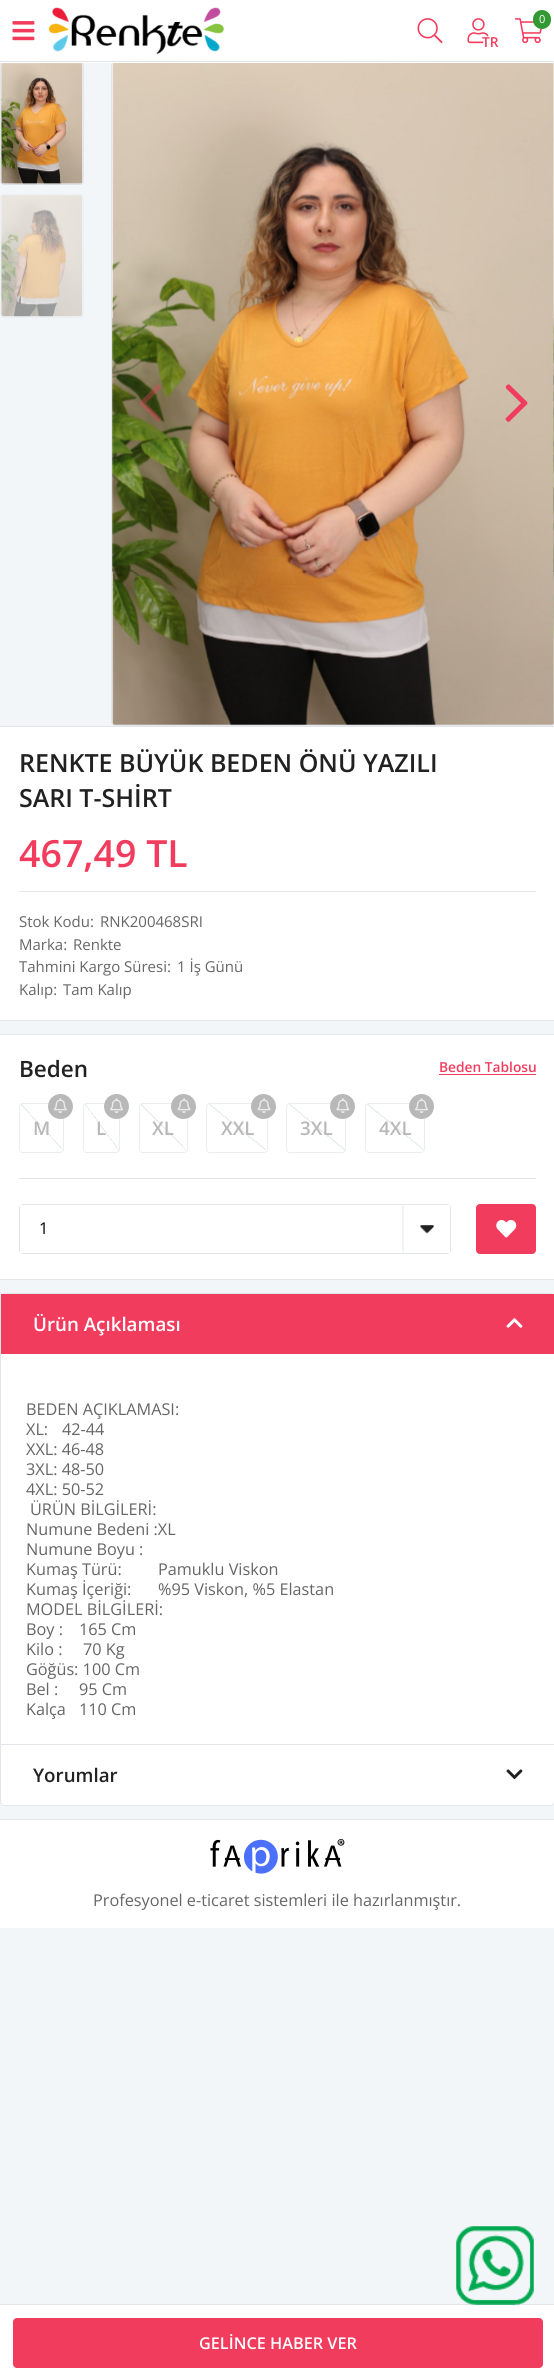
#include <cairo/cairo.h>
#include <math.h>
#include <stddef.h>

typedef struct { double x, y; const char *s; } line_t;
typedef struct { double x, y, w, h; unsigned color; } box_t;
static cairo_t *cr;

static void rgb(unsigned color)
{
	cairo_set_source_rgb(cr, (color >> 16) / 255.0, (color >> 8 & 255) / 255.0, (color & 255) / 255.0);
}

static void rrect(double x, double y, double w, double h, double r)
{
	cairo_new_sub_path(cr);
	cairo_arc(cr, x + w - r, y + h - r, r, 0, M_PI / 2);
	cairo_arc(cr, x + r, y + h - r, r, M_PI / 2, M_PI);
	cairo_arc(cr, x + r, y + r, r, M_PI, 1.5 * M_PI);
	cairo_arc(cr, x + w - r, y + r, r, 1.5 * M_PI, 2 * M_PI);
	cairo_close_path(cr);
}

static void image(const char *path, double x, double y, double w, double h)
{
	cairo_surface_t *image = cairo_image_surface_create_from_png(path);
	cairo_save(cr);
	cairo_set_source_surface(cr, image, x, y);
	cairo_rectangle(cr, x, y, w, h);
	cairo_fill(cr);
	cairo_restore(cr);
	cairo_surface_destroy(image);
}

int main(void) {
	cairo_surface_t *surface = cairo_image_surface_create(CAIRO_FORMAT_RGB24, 554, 2379);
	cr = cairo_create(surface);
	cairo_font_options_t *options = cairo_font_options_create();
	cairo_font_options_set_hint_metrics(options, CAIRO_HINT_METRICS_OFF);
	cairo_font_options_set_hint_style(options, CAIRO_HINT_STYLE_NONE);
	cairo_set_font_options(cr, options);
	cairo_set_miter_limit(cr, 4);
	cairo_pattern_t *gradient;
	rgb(0xf3f6f9);
	cairo_paint(cr);
	rrect(0.5, 61.5, 83, 123, 3.5);
	rgb(0xe2e6eb);
	cairo_set_line_width(cr, 1);
	cairo_stroke(cr);
	rgb(0xffffff);
	rrect(111.5, 61.5, 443, 664, 3.5);
	cairo_fill_preserve(cr);
	rgb(0xe2e6eb);
	cairo_stroke(cr);
	rgb(0xffffff);
	cairo_rectangle(cr, 0, 0, 554, 63);
	cairo_fill(cr);
	rgb(0xe2e6eb);
	cairo_rectangle(cr, 0, 61, 554, 1);
	cairo_fill(cr);
	image("img/1.png", 12, 21, 23, 20);
	image("img/2.png", 48, 7, 176, 48);
	image("img/3.png", 417, 18, 26, 26);
	image("img/4.png", 467, 18, 22, 26);
	rgb(0xffffff);
	rrect(483, 35, 18, 19, 9);
	cairo_fill(cr);
	image("img/5.png", 515, 18, 27, 26);
	rgb(0x339933);
	rrect(533, 10, 18, 19, 9);
	cairo_fill(cr);
	image("img/6.png", 1, 63, 82, 122);
	rrect(0.5, 194.5, 83, 123, 3.5);
	rgb(0xecf0f3);
	cairo_stroke(cr);
	image("img/7.png", 1, 195, 82, 122);
	image("img/8.png", 112, 63, 442, 662);
	image("img/9.png", 553, 63, 1, 662);
	image("img/10.png", 139, 384, 23, 38);
	image("img/11.png", 505, 384, 23, 38);
	{
		static const box_t items[] = {
			{0, 727, 554, 293, 0xffffff},
			{0, 726, 554, 1, 0xe2e6eb},
			{0, 1020, 554, 1, 0xe2e6eb},
			{19, 891, 517, 1, 0xe2e6eb},
			{0, 1035, 554, 244, 0xffffff},
			{0, 1034, 554, 1, 0xe2e6eb},
			{0, 1279, 554, 1, 0xe2e6eb},
			{19, 1178, 517, 1, 0xe2e6eb},
		};
		for (size_t i = 0; i < sizeof items / sizeof *items; i++) {
			rgb(items[i].color);
			cairo_rectangle(cr, items[i].x, items[i].y, items[i].w, items[i].h);
			cairo_fill(cr);
		}
	}
	rrect(19.5, 1103.5, 44, 49, 3.5);
	rgb(0xebeef1);
	cairo_stroke(cr);
	rgb(0xb8b8b8);
	cairo_arc(cr, 60.5, 1106.5, 12.5, 0, 2 * M_PI);
	cairo_fill(cr);
	image("img/12.png", 53, 1098, 14, 15);
	gradient = cairo_pattern_create_linear(65, 1106, 18, 1149);
	cairo_pattern_add_color_stop_rgba(gradient, 0.48, 0.922, 0.933, 0.945, 0);
	cairo_pattern_add_color_stop_rgba(gradient, 0.48, 0.922, 0.933, 0.945, 1);
	cairo_pattern_add_color_stop_rgba(gradient, 0.5, 0.922, 0.933, 0.945, 1);
	cairo_pattern_add_color_stop_rgba(gradient, 0.5, 0.922, 0.933, 0.945, 0);
	cairo_set_source(cr, gradient);
	cairo_pattern_destroy(gradient);
	cairo_rectangle(cr, 21, 1104, 42, 46);
	cairo_fill(cr);
	rrect(83.5, 1103.5, 36, 49, 3.5);
	rgb(0xebeef1);
	cairo_stroke(cr);
	rgb(0xb8b8b8);
	cairo_arc(cr, 116.5, 1106.5, 12.5, 0, 2 * M_PI);
	cairo_fill(cr);
	image("img/13.png", 110, 1098, 13, 15);
	gradient = cairo_pattern_create_linear(124, 1111, 79, 1144);
	cairo_pattern_add_color_stop_rgba(gradient, 0.48, 0.922, 0.933, 0.945, 0);
	cairo_pattern_add_color_stop_rgba(gradient, 0.48, 0.922, 0.933, 0.945, 1);
	cairo_pattern_add_color_stop_rgba(gradient, 0.5, 0.922, 0.933, 0.945, 1);
	cairo_pattern_add_color_stop_rgba(gradient, 0.5, 0.922, 0.933, 0.945, 0);
	cairo_set_source(cr, gradient);
	cairo_pattern_destroy(gradient);
	cairo_rectangle(cr, 85, 1104, 34, 47);
	cairo_fill(cr);
	rrect(139.5, 1103.5, 48, 49, 3.5);
	rgb(0xebeef1);
	cairo_stroke(cr);
	rgb(0xb8b8b8);
	cairo_arc(cr, 183.5, 1106.5, 12.5, 0, 2 * M_PI);
	cairo_fill(cr);
	image("img/14.png", 177, 1098, 14, 15);
	gradient = cairo_pattern_create_linear(187, 1104, 139, 1151);
	cairo_pattern_add_color_stop_rgba(gradient, 0.48, 0.922, 0.933, 0.945, 0);
	cairo_pattern_add_color_stop_rgba(gradient, 0.48, 0.922, 0.933, 0.945, 1);
	cairo_pattern_add_color_stop_rgba(gradient, 0.5, 0.922, 0.933, 0.945, 1);
	cairo_pattern_add_color_stop_rgba(gradient, 0.5, 0.922, 0.933, 0.945, 0);
	cairo_set_source(cr, gradient);
	cairo_pattern_destroy(gradient);
	cairo_rectangle(cr, 141, 1104, 45, 46);
	cairo_fill(cr);
	rrect(206.5, 1103.5, 61, 49, 3.5);
	rgb(0xebeef1);
	cairo_stroke(cr);
	rgb(0xb8b8b8);
	cairo_arc(cr, 263.5, 1106.5, 12.5, 0, 2 * M_PI);
	cairo_fill(cr);
	image("img/14.png", 257, 1098, 14, 15);
	gradient = cairo_pattern_create_linear(260, 1099, 214, 1156);
	cairo_pattern_add_color_stop_rgba(gradient, 0.48, 0.922, 0.933, 0.945, 0);
	cairo_pattern_add_color_stop_rgba(gradient, 0.48, 0.922, 0.933, 0.945, 1);
	cairo_pattern_add_color_stop_rgba(gradient, 0.5, 0.922, 0.933, 0.945, 1);
	cairo_pattern_add_color_stop_rgba(gradient, 0.5, 0.922, 0.933, 0.945, 0);
	cairo_set_source(cr, gradient);
	cairo_pattern_destroy(gradient);
	cairo_rectangle(cr, 209, 1104, 57, 46);
	cairo_fill(cr);
	rrect(286.5, 1103.5, 59, 49, 3.5);
	rgb(0xebeef1);
	cairo_stroke(cr);
	rgb(0xb8b8b8);
	cairo_arc(cr, 342.5, 1106.5, 12.5, 0, 2 * M_PI);
	cairo_fill(cr);
	image("img/15.png", 336, 1098, 14, 15);
	gradient = cairo_pattern_create_linear(340, 1099, 293, 1156);
	cairo_pattern_add_color_stop_rgba(gradient, 0.48, 0.922, 0.933, 0.945, 0);
	cairo_pattern_add_color_stop_rgba(gradient, 0.48, 0.922, 0.933, 0.945, 1);
	cairo_pattern_add_color_stop_rgba(gradient, 0.5, 0.922, 0.933, 0.945, 1);
	cairo_pattern_add_color_stop_rgba(gradient, 0.5, 0.922, 0.933, 0.945, 0);
	cairo_set_source(cr, gradient);
	cairo_pattern_destroy(gradient);
	cairo_rectangle(cr, 289, 1104, 56, 47);
	cairo_fill(cr);
	rrect(365.5, 1103.5, 59, 49, 3.5);
	rgb(0xebeef1);
	cairo_stroke(cr);
	rgb(0xb8b8b8);
	cairo_arc(cr, 421.5, 1106.5, 12.5, 0, 2 * M_PI);
	cairo_fill(cr);
	image("img/13.png", 415, 1098, 13, 15);
	gradient = cairo_pattern_create_linear(418, 1099, 372, 1156);
	cairo_pattern_add_color_stop_rgba(gradient, 0.48, 0.922, 0.933, 0.945, 0);
	cairo_pattern_add_color_stop_rgba(gradient, 0.48, 0.922, 0.933, 0.945, 1);
	cairo_pattern_add_color_stop_rgba(gradient, 0.5, 0.922, 0.933, 0.945, 1);
	cairo_pattern_add_color_stop_rgba(gradient, 0.5, 0.922, 0.933, 0.945, 0);
	cairo_set_source(cr, gradient);
	cairo_pattern_destroy(gradient);
	cairo_rectangle(cr, 367, 1104, 57, 46);
	cairo_fill(cr);
	rgb(0xf23c5d);
	cairo_rectangle(cr, 439, 1074, 97, 1);
	cairo_fill(cr);
	rrect(19.5, 1204.5, 431, 49, 3.5);
	rgb(0xe2e6eb);
	cairo_stroke(cr);
	rgb(0xffffff);
	cairo_rectangle(cr, 20, 1205, 430, 48);
	cairo_fill(cr);
	image("img/16.png", 402, 1205, 32, 48);
	rgb(0xf23c5d);
	rrect(476.5, 1204.5, 59, 49, 3.5);
	cairo_fill_preserve(cr);
	cairo_stroke(cr);
	image("img/17.png", 496, 1220, 21, 18);
	rgb(0xffffff);
	cairo_rectangle(cr, 0, 2305, 554, 74);
	cairo_fill(cr);
	rgb(0xe2e6eb);
	cairo_rectangle(cr, 0, 2304, 554, 1);
	cairo_fill(cr);
	rgb(0xf23c5d);
	rrect(13.5, 2318.5, 529, 49, 3.5);
	cairo_fill_preserve(cr);
	cairo_stroke(cr);
	rgb(0xffffff);
	rrect(0.5, 1293.5, 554, 512, 3.5);
	cairo_fill_preserve(cr);
	rgb(0xe2e6eb);
	cairo_stroke(cr);
	rgb(0xf23c5d);
	cairo_rectangle(cr, 1, 1294, 553, 60);
	cairo_fill(cr);
	image("img/18.png", 506, 1318, 17, 10);
	rgb(0xe2e6eb);
	cairo_rectangle(cr, 1, 1744, 553, 1);
	cairo_fill(cr);
	image("img/19.png", 506, 1769, 17, 11);
	rgb(0xffffff);
	cairo_rectangle(cr, 0, 1820, 554, 108);
	cairo_fill(cr);
	rgb(0xe2e6eb);
	cairo_rectangle(cr, 0, 1819, 554, 1);
	cairo_fill(cr);
	image("img/20.png", 210, 1839, 135, 35);
	image("img/21.png", 456, 2226, 78, 79);
	cairo_select_font_face(cr, "Open Sans SemiBold", CAIRO_FONT_SLANT_NORMAL, CAIRO_FONT_WEIGHT_NORMAL);
	cairo_set_font_size(cr, 13.75);
	rgb(0xf23c5d);
	cairo_move_to(cr, 482, 47);
	cairo_show_text(cr, "TR");
	cairo_select_font_face(cr, "Open Sans", CAIRO_FONT_SLANT_NORMAL, CAIRO_FONT_WEIGHT_NORMAL);
	cairo_set_font_size(cr, 11);
	rgb(0xffffff);
	cairo_move_to(cr, 539, 23);
	cairo_show_text(cr, "0");
	cairo_select_font_face(cr, "Open Sans SemiBold", CAIRO_FONT_SLANT_NORMAL, CAIRO_FONT_WEIGHT_NORMAL);
	cairo_set_font_size(cr, 25);
	rgb(0x212121);
	cairo_move_to(cr, 19, 772);
	cairo_show_text(cr, "RENKTE BÜYÜK BEDEN ÖNÜ YAZILI");
	cairo_move_to(cr, 19, 807);
	cairo_show_text(cr, "SARI T-SHİRT");
	cairo_set_font_size(cr, 37.5);
	rgb(0xf23c5d);
	cairo_move_to(cr, 19, 867);
	cairo_show_text(cr, "467,49 TL");
	cairo_select_font_face(cr, "Open Sans", CAIRO_FONT_SLANT_NORMAL, CAIRO_FONT_WEIGHT_NORMAL);
	cairo_set_font_size(cr, 15);
	rgb(0x666666);
	{
		static const line_t items[] = {
			{19, 927, "Stok Kodu:"},
			{100, 927, "RNK200468SRI"},
			{19, 950, "Marka:"},
			{73, 950, "Renkte"},
			{19, 972, "Tahmini Kargo Süresi:"},
			{177, 972, "1 İş Günü"},
			{19, 995, "Kalıp:"},
			{63, 995, "Tam Kalıp"},
		};
		for (size_t i = 0; i < sizeof items / sizeof *items; i++) {
			cairo_move_to(cr, items[i].x, items[i].y);
			cairo_show_text(cr, items[i].s);
		}
	}
	cairo_select_font_face(cr, "Open Sans SemiBold", CAIRO_FONT_SLANT_NORMAL, CAIRO_FONT_WEIGHT_NORMAL);
	cairo_set_font_size(cr, 22.5);
	rgb(0x212121);
	cairo_move_to(cr, 19, 1077);
	cairo_show_text(cr, "Beden");
	cairo_set_font_size(cr, 18.75);
	rgb(0xb8b8b8);
	{
		static const line_t items[] = {
			{33, 1135, "M"},
			{96, 1135, "L"},
			{152, 1135, "XL"},
			{221, 1135, "XXL"},
			{300, 1135, "3XL"},
			{379, 1135, "4XL"},
		};
		for (size_t i = 0; i < sizeof items / sizeof *items; i++) {
			cairo_move_to(cr, items[i].x, items[i].y);
			cairo_show_text(cr, items[i].s);
		}
	}
	cairo_set_font_size(cr, 13.75);
	rgb(0xf23c5d);
	cairo_move_to(cr, 439, 1072);
	cairo_show_text(cr, "Beden Tablosu");
	cairo_select_font_face(cr, "Open Sans", CAIRO_FONT_SLANT_NORMAL, CAIRO_FONT_WEIGHT_NORMAL);
	cairo_set_font_size(cr, 16.25);
	rgb(0x000000);
	cairo_move_to(cr, 39, 1234);
	cairo_show_text(cr, "1");
	cairo_select_font_face(cr, "Open Sans SemiBold", CAIRO_FONT_SLANT_NORMAL, CAIRO_FONT_WEIGHT_NORMAL);
	rgb(0xffffff);
	cairo_move_to(cr, 199, 2349);
	cairo_show_text(cr, "GELİNCE HABER VER");
	cairo_set_font_size(cr, 18.75);
	cairo_move_to(cr, 33, 1331);
	cairo_show_text(cr, "Ürün Açıklaması");
	cairo_select_font_face(cr, "Open Sans", CAIRO_FONT_SLANT_NORMAL, CAIRO_FONT_WEIGHT_NORMAL);
	cairo_set_font_size(cr, 16.25);
	rgb(0x666666);
	{
		static const line_t items[] = {
			{26, 1415, "BEDEN AÇIKLAMASI:"},
			{26, 1435, "XL:"},
			{62, 1435, "42-44"},
			{26, 1455, "XXL: 46-48"},
			{26, 1475, "3XL: 48-50"},
			{26, 1495, "4XL: 50-52"},
			{30, 1515, "ÜRÜN BİLGİLERİ:"},
			{26, 1535, "Numune Bedeni :XL"},
			{26, 1555, "Numune Boyu :"},
			{26, 1575, "Kumaş Türü:"},
			{158, 1575, "Pamuklu Viskon"},
			{26, 1595, "Kumaş İçeriği:"},
			{158, 1595, "%95 Viskon, %5 Elastan"},
			{26, 1615, "MODEL BİLGİLERİ:"},
			{26, 1635, "Boy :"},
			{79, 1635, "165 Cm"},
			{26, 1655, "Kilo :"},
			{83, 1655, "70 Kg"},
			{26, 1675, "Göğüs: 100 Cm"},
			{26, 1695, "Bel :"},
			{79, 1695, "95 Cm"},
			{26, 1715, "Kalça"},
			{79, 1715, "110 Cm"},
		};
		for (size_t i = 0; i < sizeof items / sizeof *items; i++) {
			cairo_move_to(cr, items[i].x, items[i].y);
			cairo_show_text(cr, items[i].s);
		}
	}
	cairo_select_font_face(cr, "Open Sans SemiBold", CAIRO_FONT_SLANT_NORMAL, CAIRO_FONT_WEIGHT_NORMAL);
	cairo_set_font_size(cr, 18.75);
	rgb(0x212121);
	cairo_move_to(cr, 33, 1782);
	cairo_show_text(cr, "Yorumlar");
	cairo_select_font_face(cr, "Open Sans", CAIRO_FONT_SLANT_NORMAL, CAIRO_FONT_WEIGHT_NORMAL);
	cairo_set_font_size(cr, 16.25);
	rgb(0x666666);
	cairo_move_to(cr, 93, 1906);
	cairo_show_text(cr, "Profesyonel e-ticaret sistemleri ile hazırlanmıştır.");
	cairo_surface_write_to_png(surface, "page.png");
	cairo_font_options_destroy(options);
	cairo_destroy(cr);
	cairo_surface_destroy(surface);
	return 0;
}
